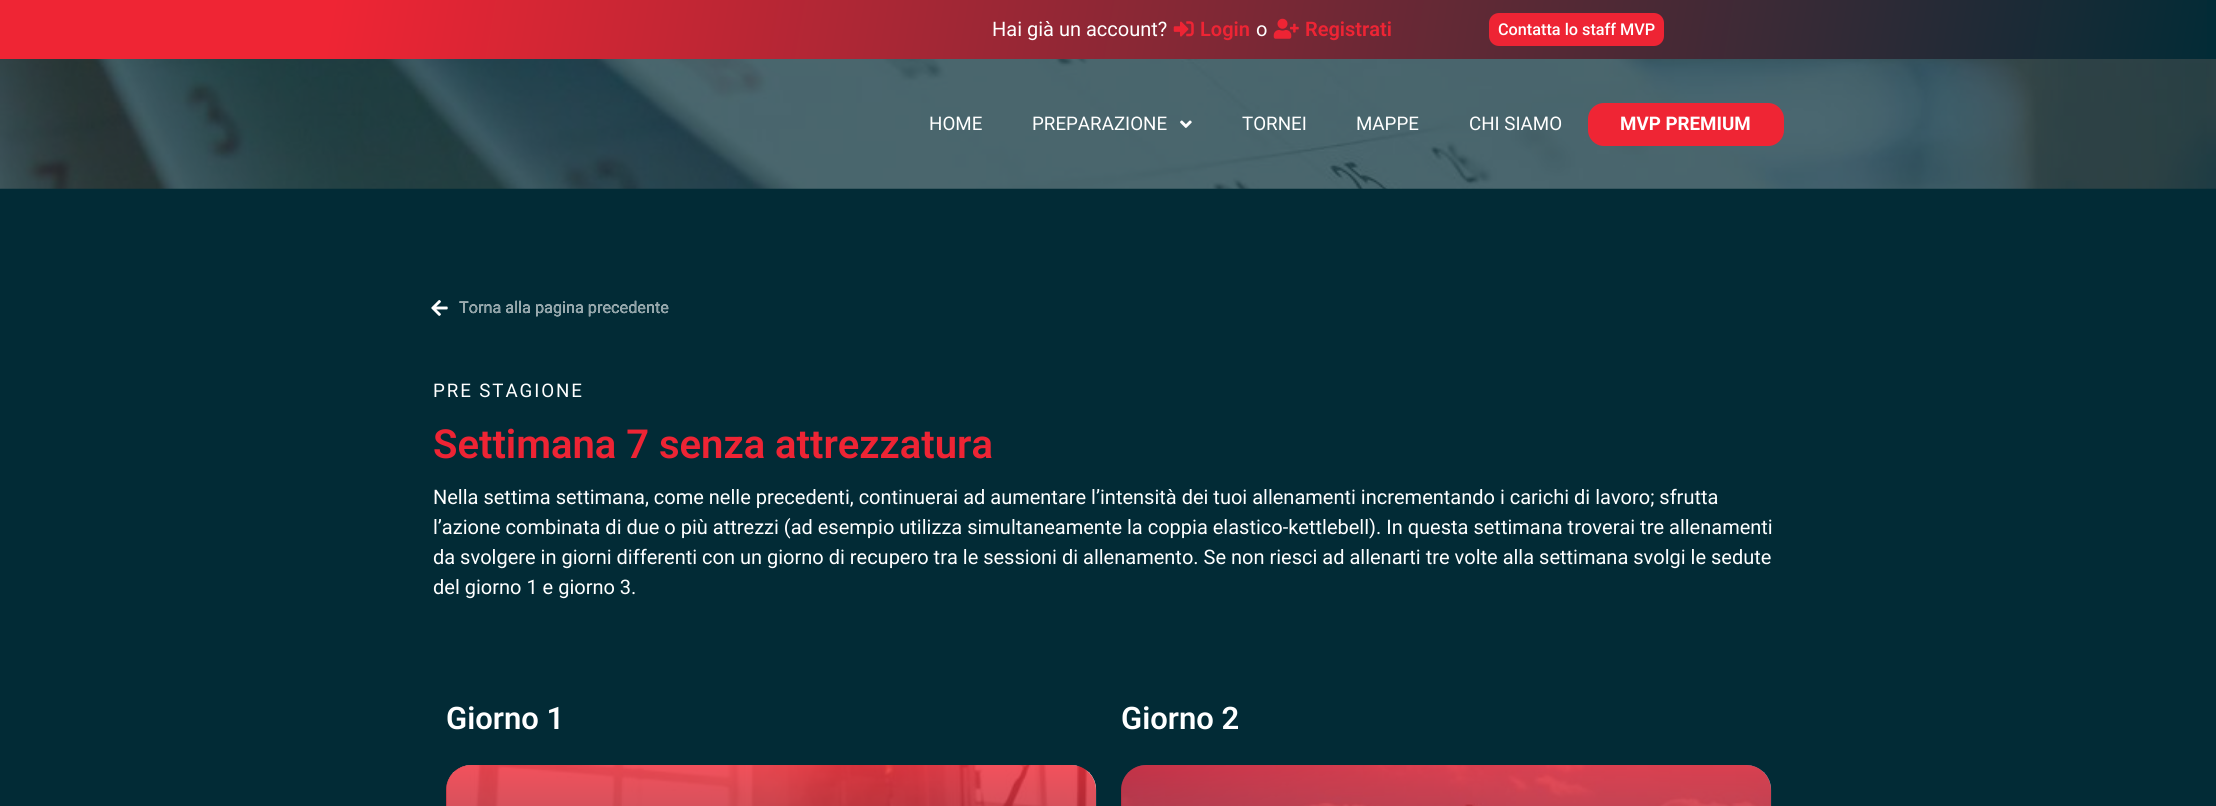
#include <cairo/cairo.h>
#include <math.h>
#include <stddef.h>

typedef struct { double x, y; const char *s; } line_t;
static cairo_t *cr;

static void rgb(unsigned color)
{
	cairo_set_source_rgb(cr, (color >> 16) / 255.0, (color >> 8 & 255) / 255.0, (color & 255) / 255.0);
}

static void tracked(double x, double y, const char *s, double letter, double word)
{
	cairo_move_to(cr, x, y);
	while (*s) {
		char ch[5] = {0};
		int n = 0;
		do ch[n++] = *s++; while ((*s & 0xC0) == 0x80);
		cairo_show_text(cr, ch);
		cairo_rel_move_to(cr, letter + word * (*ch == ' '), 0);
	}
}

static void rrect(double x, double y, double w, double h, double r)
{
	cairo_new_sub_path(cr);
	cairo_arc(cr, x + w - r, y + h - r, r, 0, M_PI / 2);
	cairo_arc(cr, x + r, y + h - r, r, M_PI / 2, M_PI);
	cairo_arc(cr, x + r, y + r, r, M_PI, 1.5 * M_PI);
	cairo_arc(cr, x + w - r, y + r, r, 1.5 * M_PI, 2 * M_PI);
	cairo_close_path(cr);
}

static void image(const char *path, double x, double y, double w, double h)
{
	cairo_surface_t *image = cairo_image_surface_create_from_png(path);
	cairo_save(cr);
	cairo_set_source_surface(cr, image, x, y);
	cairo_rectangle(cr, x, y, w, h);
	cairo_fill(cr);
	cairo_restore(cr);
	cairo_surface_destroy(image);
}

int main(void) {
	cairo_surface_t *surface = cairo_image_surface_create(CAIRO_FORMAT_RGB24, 2216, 806);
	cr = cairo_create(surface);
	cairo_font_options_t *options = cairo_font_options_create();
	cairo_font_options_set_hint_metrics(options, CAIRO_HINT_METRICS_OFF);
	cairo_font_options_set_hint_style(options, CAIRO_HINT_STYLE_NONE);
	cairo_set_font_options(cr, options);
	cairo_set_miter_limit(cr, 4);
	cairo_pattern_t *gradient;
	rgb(0x022b36);
	cairo_paint(cr);
	gradient = cairo_pattern_create_linear(2188, 220, 28, -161);
	cairo_pattern_add_color_stop_rgba(gradient, 0, 0.008, 0.169, 0.212, 1);
	cairo_pattern_add_color_stop_rgba(gradient, 0.85, 0.937, 0.145, 0.204, 1);
	cairo_set_source(cr, gradient);
	cairo_pattern_destroy(gradient);
	cairo_rectangle(cr, 0, 0, 2207, 59);
	cairo_fill(cr);
	image("img/1.png", 1173, 21, 21, 16);
	image("img/2.png", 1273, 18, 26, 21);
	rgb(0xee2434);
	rrect(1489, 13, 175, 33, 10);
	cairo_fill(cr);
	image("img/4.png", 0, 59, 2216, 130);
	image("img/3.png", 1180, 120, 12, 8);
	rgb(0xef2534);
	rrect(1588, 103, 196, 43, 16);
	cairo_fill(cr);
	image("img/5.png", 431, 300, 17, 16);
	image("img/6.png", 446, 765, 651, 41);
	gradient = cairo_pattern_create_linear(771, 765, 771, 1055);
	cairo_pattern_add_color_stop_rgba(gradient, 0, 0.937, 0.145, 0.204, 0.8);
	cairo_pattern_add_color_stop_rgba(gradient, 1, 0.008, 0.169, 0.212, 0.8);
	cairo_set_source(cr, gradient);
	cairo_pattern_destroy(gradient);
	rrect(446, 765, 650, 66, 25);
	cairo_fill(cr);
	image("img/7.png", 1121, 765, 651, 41);
	gradient = cairo_pattern_create_linear(1446, 765, 1446, 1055);
	cairo_pattern_add_color_stop_rgba(gradient, 0, 0.937, 0.145, 0.204, 0.8);
	cairo_pattern_add_color_stop_rgba(gradient, 1, 0.008, 0.169, 0.212, 0.8);
	cairo_set_source(cr, gradient);
	cairo_pattern_destroy(gradient);
	rrect(1121, 765, 650, 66, 25);
	cairo_fill(cr);
	cairo_select_font_face(cr, "Roboto", CAIRO_FONT_SLANT_NORMAL, CAIRO_FONT_WEIGHT_NORMAL);
	cairo_set_font_size(cr, 20);
	rgb(0xffffff);
	cairo_move_to(cr, 992, 36);
	cairo_show_text(cr, "Hai già un account?");
	cairo_select_font_face(cr, "Roboto SemiBold", CAIRO_FONT_SLANT_NORMAL, CAIRO_FONT_WEIGHT_NORMAL);
	rgb(0xee2434);
	cairo_move_to(cr, 1200, 36);
	cairo_show_text(cr, "Login");
	cairo_select_font_face(cr, "Roboto", CAIRO_FONT_SLANT_NORMAL, CAIRO_FONT_WEIGHT_NORMAL);
	rgb(0xffffff);
	cairo_move_to(cr, 1256, 36);
	cairo_show_text(cr, "o");
	cairo_select_font_face(cr, "Roboto SemiBold", CAIRO_FONT_SLANT_NORMAL, CAIRO_FONT_WEIGHT_NORMAL);
	rgb(0xee2434);
	cairo_move_to(cr, 1305, 36);
	cairo_show_text(cr, "Registrati");
	cairo_select_font_face(cr, "Roboto Medium", CAIRO_FONT_SLANT_NORMAL, CAIRO_FONT_WEIGHT_NORMAL);
	cairo_set_font_size(cr, 16.25);
	rgb(0xffffff);
	cairo_move_to(cr, 1498, 35);
	cairo_show_text(cr, "Contatta lo staff MVP");
	cairo_select_font_face(cr, "Roboto", CAIRO_FONT_SLANT_NORMAL, CAIRO_FONT_WEIGHT_NORMAL);
	cairo_set_font_size(cr, 18.75);
	{
		static const line_t items[] = {
			{929, 130, "HOME"},
			{1032, 130, "PREPARAZIONE"},
			{1242, 130, "TORNEI"},
			{1356, 130, "MAPPE"},
			{1469, 130, "CHI SIAMO"},
		};
		for (size_t i = 0; i < sizeof items / sizeof *items; i++) {
			cairo_move_to(cr, items[i].x, items[i].y);
			cairo_show_text(cr, items[i].s);
		}
	}
	cairo_select_font_face(cr, "Roboto", CAIRO_FONT_SLANT_NORMAL, CAIRO_FONT_WEIGHT_BOLD);
	cairo_move_to(cr, 1620, 130);
	cairo_show_text(cr, "MVP PREMIUM");
	cairo_select_font_face(cr, "Roboto", CAIRO_FONT_SLANT_NORMAL, CAIRO_FONT_WEIGHT_NORMAL);
	cairo_set_font_size(cr, 16.25);
	cairo_move_to(cr, 459, 313);
	cairo_show_text(cr, "Torna alla pagina precedente");
	rgb(0x90a2a7);
	cairo_move_to(cr, 459, 313);
	cairo_show_text(cr, "Torna alla pagina precedente");
	cairo_set_font_size(cr, 18.75);
	rgb(0xffffff);
	tracked(433, 397, "PRE STAGIONE", 1.9, 0);
	cairo_select_font_face(cr, "Roboto SemiBold", CAIRO_FONT_SLANT_NORMAL, CAIRO_FONT_WEIGHT_NORMAL);
	cairo_set_font_size(cr, 40);
	rgb(0xee2434);
	cairo_move_to(cr, 433, 458);
	cairo_show_text(cr, "Settimana 7 senza attrezzatura");
	cairo_select_font_face(cr, "Roboto", CAIRO_FONT_SLANT_NORMAL, CAIRO_FONT_WEIGHT_NORMAL);
	cairo_set_font_size(cr, 20);
	rgb(0xffffff);
	{
		static const line_t items[] = {
			{433, 504, "Nella settima settimana, come nelle precedenti, continuerai ad aumentare l’intensità dei tuoi allenamenti incrementando i carichi di lavoro; sfrutta"},
			{433, 534, "l’azione combinata di due o più attrezzi (ad esempio utilizza simultaneamente la coppia elastico-kettlebell). In questa settimana troverai tre allenamenti"},
			{433, 564, "da svolgere in giorni differenti con un giorno di recupero tra le sessioni di allenamento. Se non riesci ad allenarti tre volte alla settimana svolgi le sedute"},
			{433, 594, "del giorno 1 e giorno 3."},
		};
		for (size_t i = 0; i < sizeof items / sizeof *items; i++) {
			cairo_move_to(cr, items[i].x, items[i].y);
			cairo_show_text(cr, items[i].s);
		}
	}
	cairo_select_font_face(cr, "Roboto SemiBold", CAIRO_FONT_SLANT_NORMAL, CAIRO_FONT_WEIGHT_NORMAL);
	cairo_set_font_size(cr, 31);
	cairo_move_to(cr, 446, 729);
	cairo_show_text(cr, "Giorno 1");
	cairo_move_to(cr, 1121, 729);
	cairo_show_text(cr, "Giorno 2");
	cairo_surface_write_to_png(surface, "page.png");
	cairo_font_options_destroy(options);
	cairo_destroy(cr);
	cairo_surface_destroy(surface);
	return 0;
}
